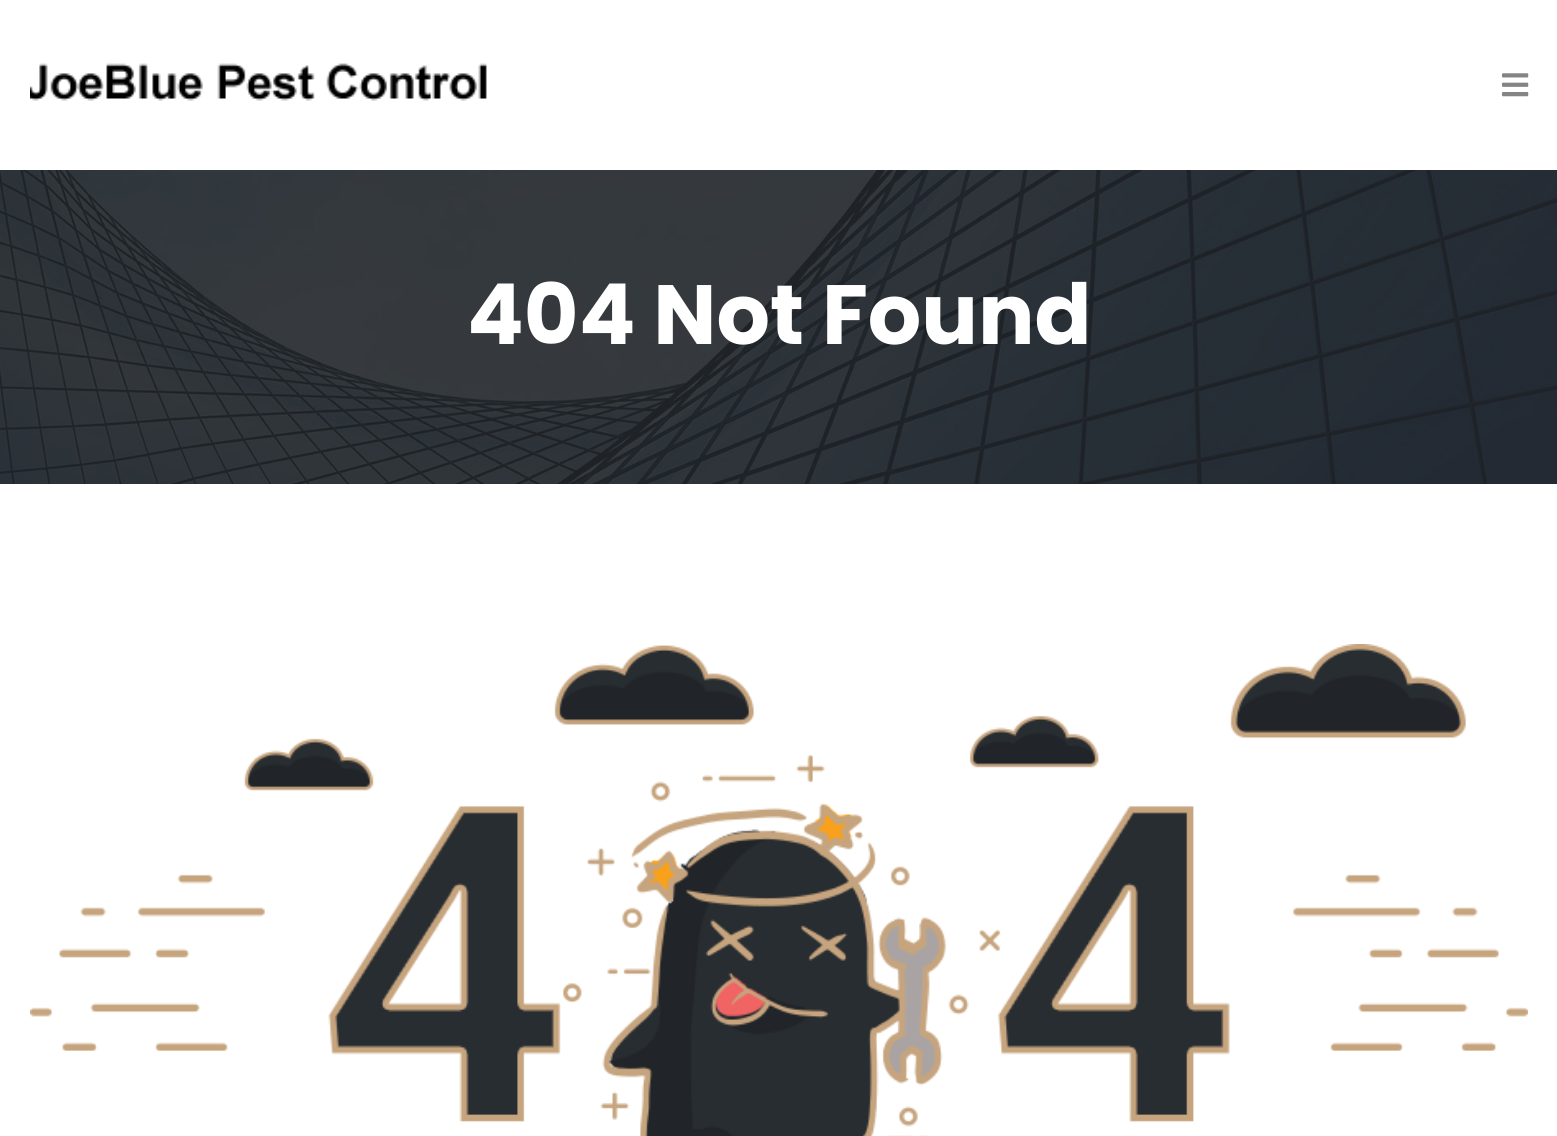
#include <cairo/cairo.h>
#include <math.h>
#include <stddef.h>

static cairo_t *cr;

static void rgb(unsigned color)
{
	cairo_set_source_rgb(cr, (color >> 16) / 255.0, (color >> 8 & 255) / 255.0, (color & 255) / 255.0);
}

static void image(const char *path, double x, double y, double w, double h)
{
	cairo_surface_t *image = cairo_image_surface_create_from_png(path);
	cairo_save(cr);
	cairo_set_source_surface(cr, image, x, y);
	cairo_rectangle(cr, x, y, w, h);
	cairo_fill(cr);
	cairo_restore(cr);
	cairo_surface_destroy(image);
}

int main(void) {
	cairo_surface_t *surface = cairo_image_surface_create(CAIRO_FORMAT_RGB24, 1557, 1136);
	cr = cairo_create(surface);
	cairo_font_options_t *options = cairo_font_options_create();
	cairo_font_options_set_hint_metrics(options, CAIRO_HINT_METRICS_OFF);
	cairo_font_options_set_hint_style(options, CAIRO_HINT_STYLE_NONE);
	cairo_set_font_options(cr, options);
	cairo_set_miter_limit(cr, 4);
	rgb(0xffffff);
	cairo_paint(cr);
	image("img/1.png", 30, 63, 457, 38);
	image("img/2.png", 1502, 73, 27, 24);
	image("img/3.png", 0, 170, 1557, 314);
	image("img/4.png", 30, 644, 1498, 492);
	cairo_select_font_face(cr, "Poppins", CAIRO_FONT_SLANT_NORMAL, CAIRO_FONT_WEIGHT_BOLD);
	cairo_set_font_size(cr, 84);
	rgb(0xffffff);
	cairo_move_to(cr, 467, 344);
	cairo_show_text(cr, "404 Not Found");
	cairo_surface_write_to_png(surface, "page.png");
	cairo_font_options_destroy(options);
	cairo_destroy(cr);
	cairo_surface_destroy(surface);
	return 0;
}
